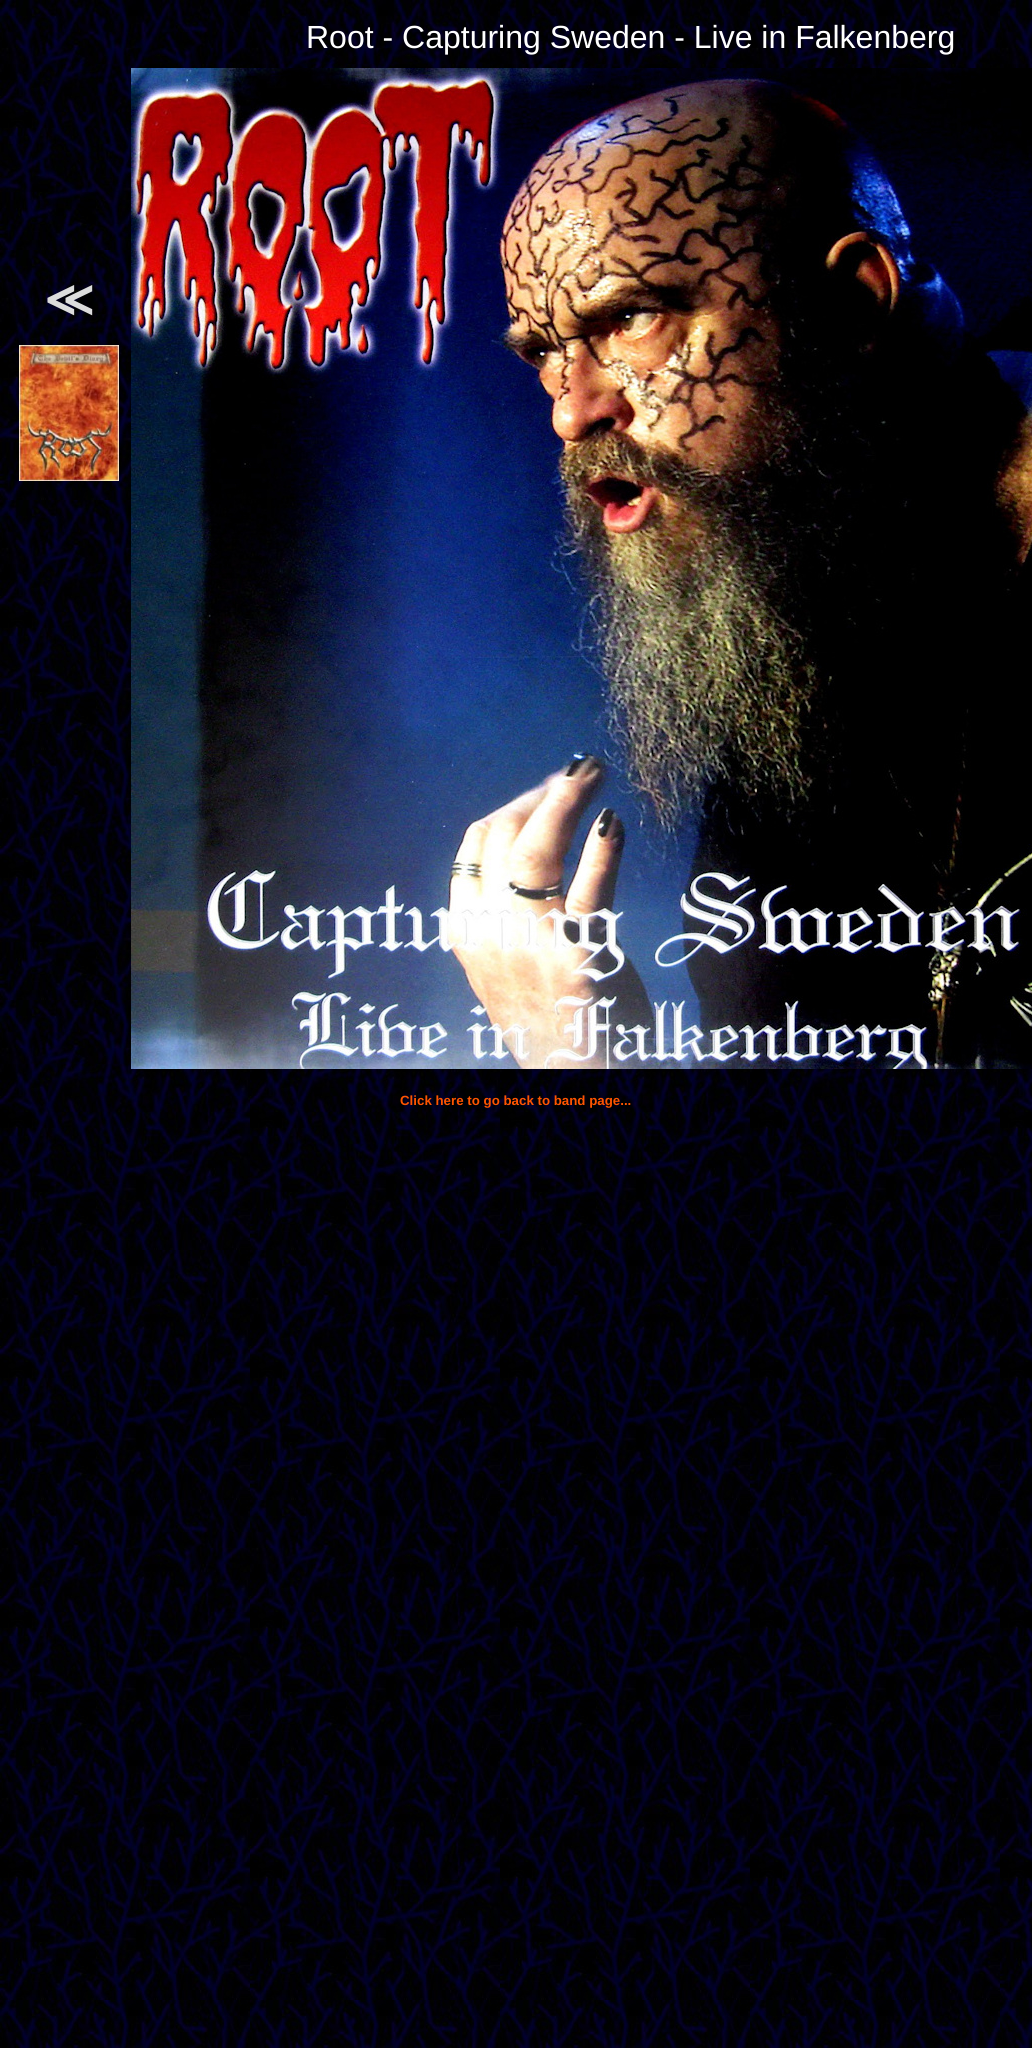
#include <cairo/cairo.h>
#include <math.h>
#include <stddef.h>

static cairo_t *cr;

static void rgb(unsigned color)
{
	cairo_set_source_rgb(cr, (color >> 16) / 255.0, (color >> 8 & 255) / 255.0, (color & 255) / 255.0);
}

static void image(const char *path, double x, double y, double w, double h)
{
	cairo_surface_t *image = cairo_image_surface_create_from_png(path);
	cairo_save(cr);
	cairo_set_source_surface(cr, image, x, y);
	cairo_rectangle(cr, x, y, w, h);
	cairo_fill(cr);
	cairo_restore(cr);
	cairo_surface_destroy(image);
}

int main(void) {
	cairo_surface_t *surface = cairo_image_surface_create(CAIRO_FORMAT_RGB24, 1032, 2048);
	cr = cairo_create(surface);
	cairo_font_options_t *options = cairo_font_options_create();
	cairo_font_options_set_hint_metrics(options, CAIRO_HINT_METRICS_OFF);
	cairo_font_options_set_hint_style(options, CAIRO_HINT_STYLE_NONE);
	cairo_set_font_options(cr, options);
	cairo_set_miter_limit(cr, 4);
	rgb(0xffffff);
	cairo_paint(cr);
	image("img/1.png", 0, 0, 1032, 2048);
	image("img/2.png", 19, 345, 100, 136);
	image("img/3.png", 131, 68, 901, 1001);
	cairo_select_font_face(cr, "Liberation Sans", CAIRO_FONT_SLANT_NORMAL, CAIRO_FONT_WEIGHT_NORMAL);
	cairo_set_font_size(cr, 32);
	rgb(0xffffff);
	cairo_move_to(cr, 306, 48);
	cairo_show_text(cr, "Root - Capturing Sweden - Live in Falkenberg");
	cairo_select_font_face(cr, "DejaVu Sans", CAIRO_FONT_SLANT_NORMAL, CAIRO_FONT_WEIGHT_BOLD);
	cairo_set_font_size(cr, 48);
	rgb(0xdcdcdc);
	cairo_move_to(cr, 44, 316);
	cairo_show_text(cr, "≪");
	cairo_select_font_face(cr, "Liberation Sans", CAIRO_FONT_SLANT_NORMAL, CAIRO_FONT_WEIGHT_BOLD);
	cairo_set_font_size(cr, 13.3);
	rgb(0xff5500);
	cairo_move_to(cr, 400, 1105);
	cairo_show_text(cr, "Click here to go back to band page...");
	cairo_surface_write_to_png(surface, "page.png");
	cairo_font_options_destroy(options);
	cairo_destroy(cr);
	cairo_surface_destroy(surface);
	return 0;
}
